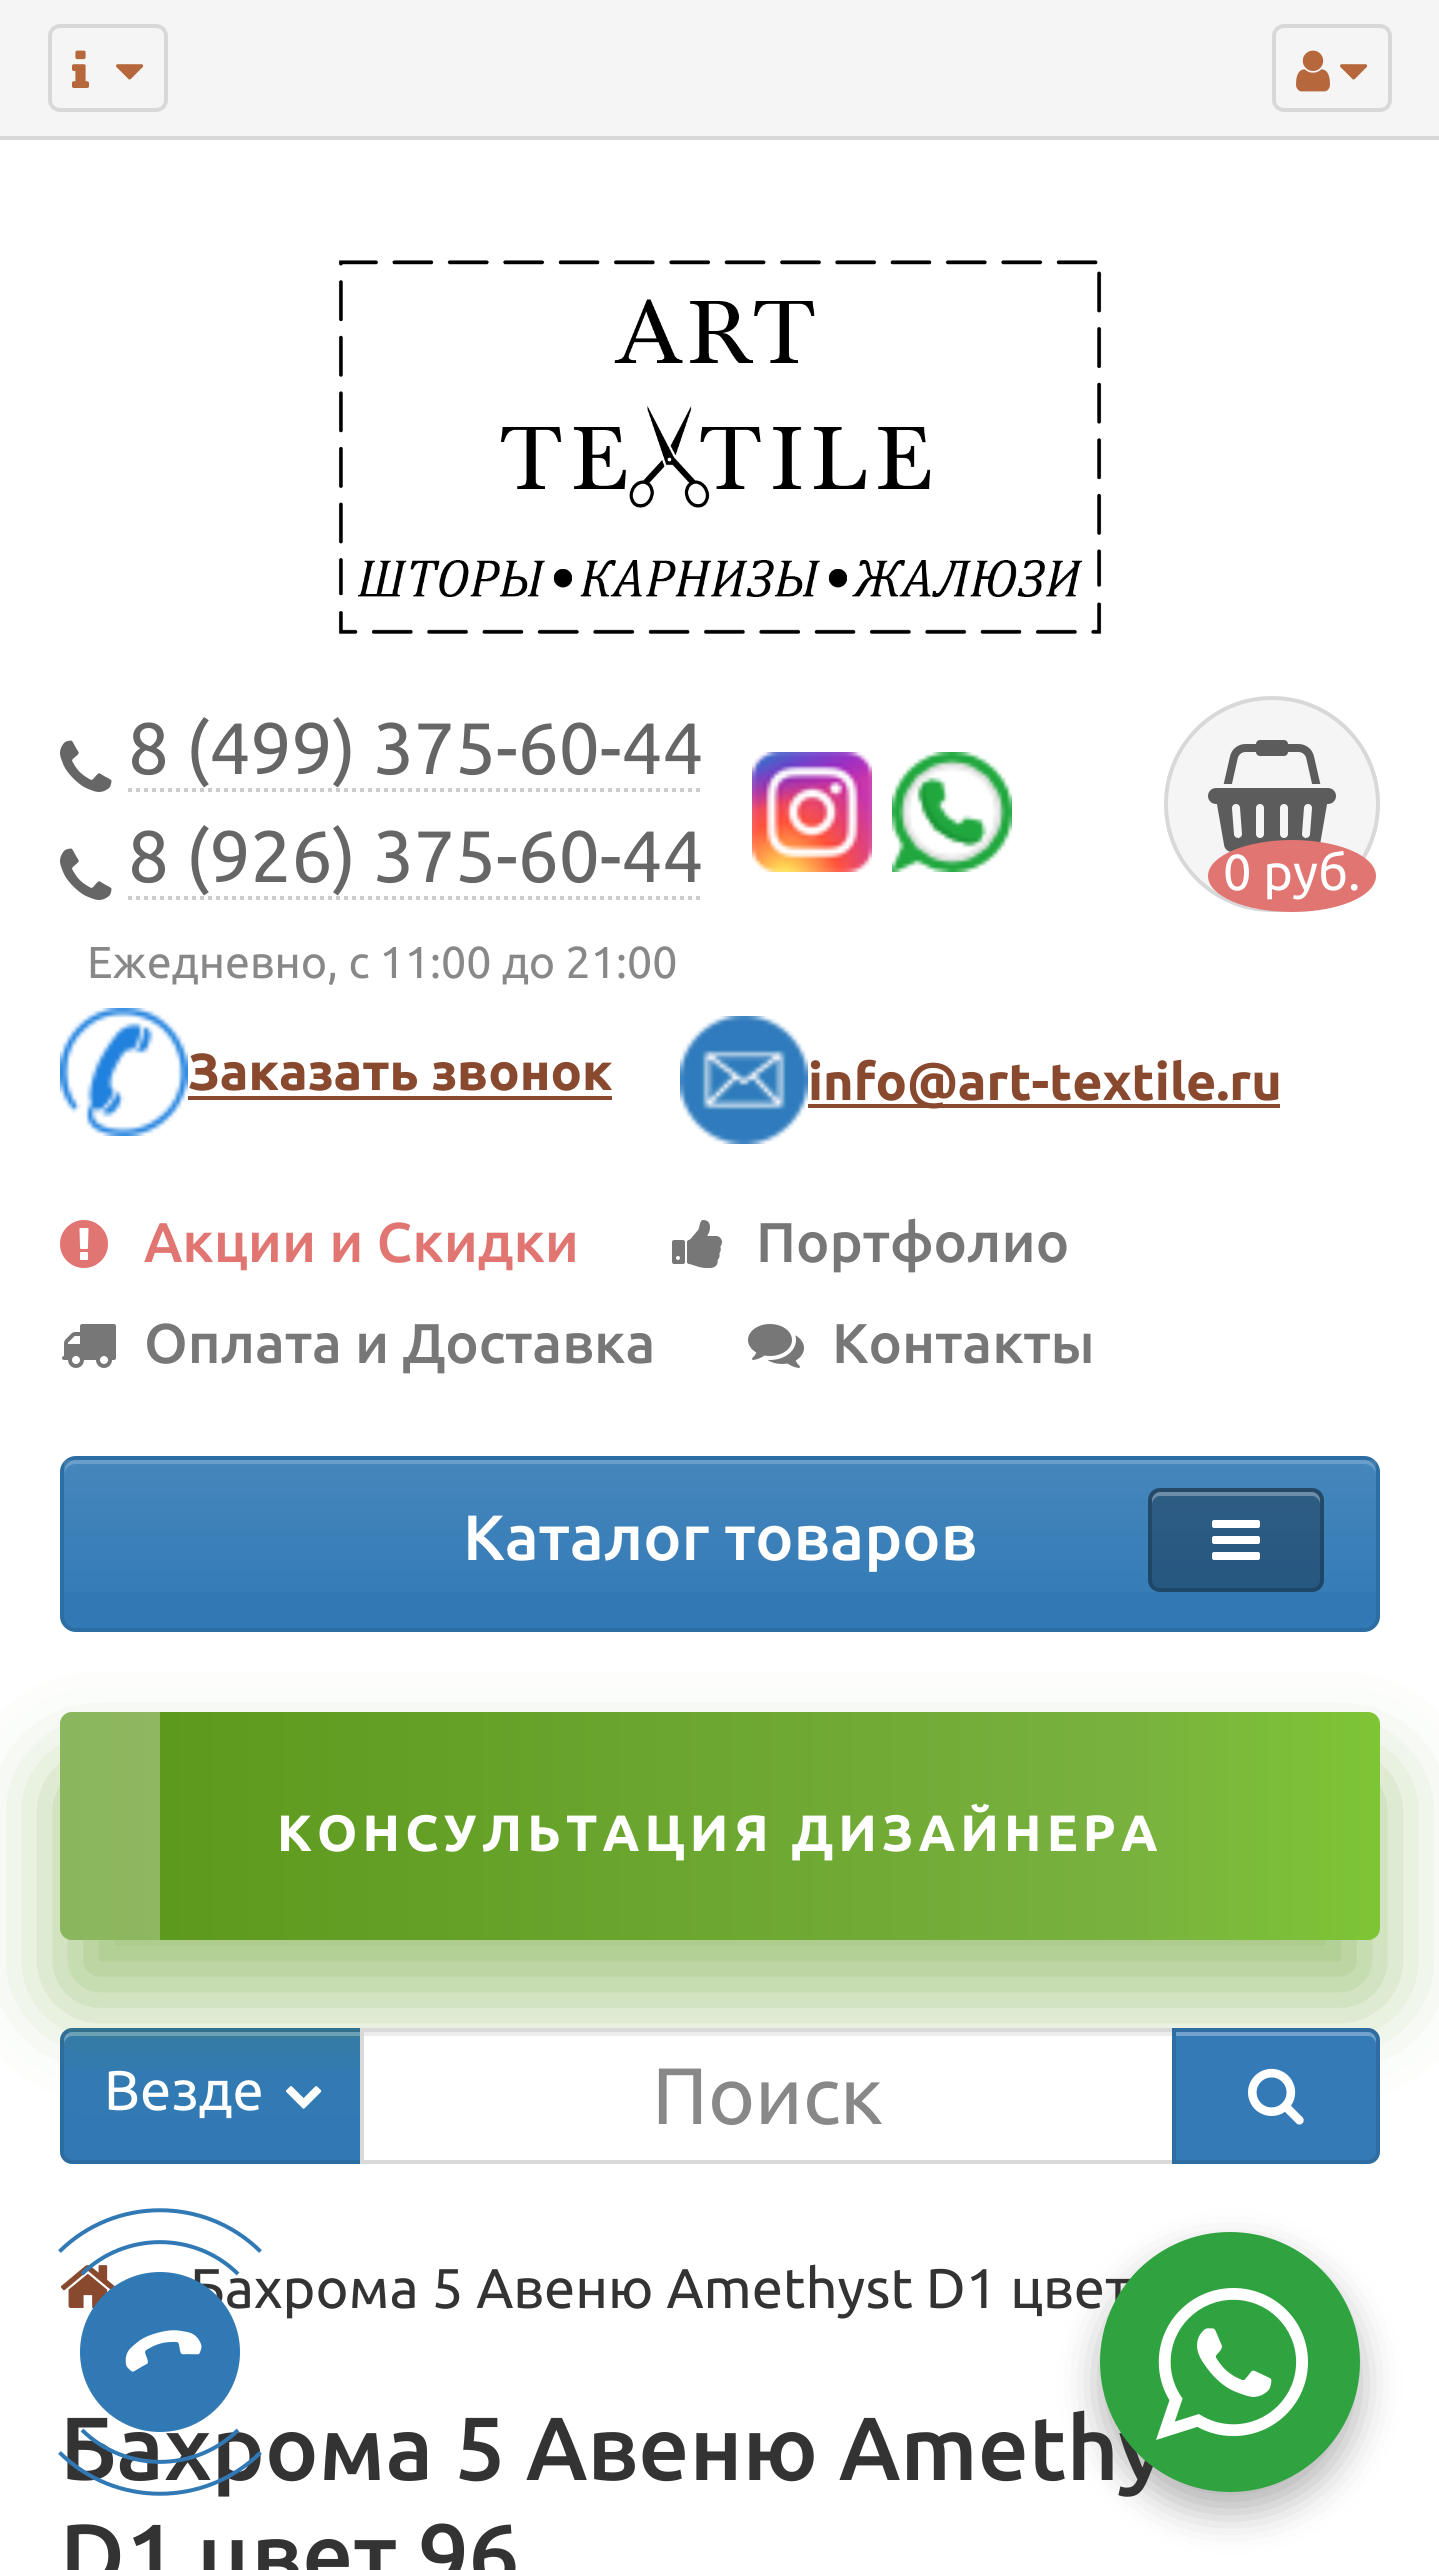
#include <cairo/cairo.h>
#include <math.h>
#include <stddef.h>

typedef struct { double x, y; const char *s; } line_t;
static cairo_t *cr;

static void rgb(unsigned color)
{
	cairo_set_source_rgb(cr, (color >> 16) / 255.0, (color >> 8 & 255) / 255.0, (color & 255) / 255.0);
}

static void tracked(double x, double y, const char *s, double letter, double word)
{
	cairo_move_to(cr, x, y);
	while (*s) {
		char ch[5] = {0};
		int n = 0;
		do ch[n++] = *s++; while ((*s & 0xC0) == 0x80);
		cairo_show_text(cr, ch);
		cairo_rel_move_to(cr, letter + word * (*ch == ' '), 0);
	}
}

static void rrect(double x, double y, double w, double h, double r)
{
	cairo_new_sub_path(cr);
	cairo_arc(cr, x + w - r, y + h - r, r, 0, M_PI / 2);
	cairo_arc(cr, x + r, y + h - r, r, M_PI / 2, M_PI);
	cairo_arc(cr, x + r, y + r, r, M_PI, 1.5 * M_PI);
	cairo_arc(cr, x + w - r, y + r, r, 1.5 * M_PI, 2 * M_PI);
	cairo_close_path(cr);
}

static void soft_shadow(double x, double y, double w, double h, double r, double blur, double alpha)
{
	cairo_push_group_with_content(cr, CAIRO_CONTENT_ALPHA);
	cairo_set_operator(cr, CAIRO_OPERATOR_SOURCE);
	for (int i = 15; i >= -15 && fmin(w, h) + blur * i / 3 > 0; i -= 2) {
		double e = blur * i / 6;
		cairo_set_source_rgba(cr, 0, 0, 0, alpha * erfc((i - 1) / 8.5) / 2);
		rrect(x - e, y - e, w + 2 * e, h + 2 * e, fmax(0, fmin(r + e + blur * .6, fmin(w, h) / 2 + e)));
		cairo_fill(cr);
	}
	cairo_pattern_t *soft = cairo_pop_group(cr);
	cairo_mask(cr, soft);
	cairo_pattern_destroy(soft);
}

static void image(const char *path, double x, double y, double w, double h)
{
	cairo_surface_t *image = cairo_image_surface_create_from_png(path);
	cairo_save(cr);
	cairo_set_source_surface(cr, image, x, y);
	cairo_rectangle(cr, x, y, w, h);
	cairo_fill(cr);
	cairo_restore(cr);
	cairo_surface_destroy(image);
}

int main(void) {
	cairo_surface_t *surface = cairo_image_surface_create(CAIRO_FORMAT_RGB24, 1439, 2570);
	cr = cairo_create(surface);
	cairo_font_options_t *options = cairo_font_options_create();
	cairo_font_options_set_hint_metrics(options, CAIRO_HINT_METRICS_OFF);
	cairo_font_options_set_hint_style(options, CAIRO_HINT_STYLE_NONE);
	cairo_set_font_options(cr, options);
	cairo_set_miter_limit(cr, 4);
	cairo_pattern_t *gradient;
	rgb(0xffffff);
	cairo_paint(cr);
	rgb(0xf5f5f5);
	cairo_rectangle(cr, 0, 0, 1439, 136);
	cairo_fill(cr);
	rgb(0xd8d8d8);
	cairo_rectangle(cr, 0, 136, 1439, 4);
	cairo_fill(cr);
	rrect(50, 26, 116, 84, 10);
	cairo_set_line_width(cr, 4);
	cairo_stroke(cr);
	image("img/1.png", 72, 50, 17, 38);
	image("img/2.png", 116, 64, 28, 16);
	rrect(1274, 26, 116, 84, 10);
	cairo_stroke(cr);
	image("img/3.png", 1296, 50, 34, 42);
	image("img/2.png", 1340, 64, 28, 16);
	image("img/4.png", 338, 260, 764, 374);
	image("img/5.png", 60, 740, 52, 52);
	cairo_new_path(cr);
	cairo_move_to(cr, 128, 790);
	cairo_line_to(cr, 704, 790);
	rgb(0xcccccc);
	cairo_set_dash(cr, (double[]){4, 4}, 2, 0);
	cairo_stroke(cr);
	image("img/5.png", 60, 848, 52, 52);
	cairo_new_path(cr);
	cairo_move_to(cr, 128, 898);
	cairo_line_to(cr, 704, 898);
	cairo_stroke(cr);
	image("img/6.png", 752, 752, 120, 120);
	image("img/7.png", 892, 752, 120, 120);
	image("img/8.png", 60, 1008, 128, 128);
	rgb(0x88492f);
	cairo_rectangle(cr, 188, 1096, 424, 4);
	cairo_fill(cr);
	image("img/9.png", 680, 1016, 128, 128);
	cairo_rectangle(cr, 808, 1104, 472, 4);
	cairo_fill(cr);
	rgb(0xf5f5f5);
	cairo_arc(cr, 1272, 804, 108, 0, 2 * M_PI);
	cairo_fill(cr);
	cairo_arc(cr, 1272, 804, 106, 0, 2 * M_PI);
	cairo_set_source_rgba(cr, 0, 0, 0, 0.12);
	cairo_set_dash(cr, NULL, 0, 0);
	cairo_stroke(cr);
	image("img/10.png", 1208, 740, 128, 112);
	rgb(0xe07572);
	cairo_new_path(cr);
	cairo_move_to(cr, 1292, 840);
	cairo_curve_to(cr, 1338.5, 840, 1376, 856, 1376, 876);
	cairo_curve_to(cr, 1376, 896, 1338.5, 912, 1292, 912);
	cairo_curve_to(cr, 1245.5, 912, 1208, 896, 1208, 876);
	cairo_curve_to(cr, 1208, 856, 1245.5, 840, 1292, 840);
	cairo_close_path(cr);
	cairo_fill(cr);
	image("img/11.png", 60, 1220, 48, 48);
	image("img/12.png", 672, 1220, 50, 48);
	image("img/13.png", 62, 1324, 54, 44);
	image("img/14.png", 748, 1324, 56, 44);
	rgb(0x3179b5);
	rrect(60, 1456, 1320, 176, 16);
	cairo_fill(cr);
	rgb(0x5a94c4);
	cairo_new_path(cr);
	cairo_move_to(cr, 76, 1464);
	cairo_line_to(cr, 1364, 1464);
	cairo_curve_to(cr, 1371, 1464, 1376, 1469, 1376, 1476);
	cairo_curve_to(cr, 1376, 1468, 1374, 1460, 1364, 1460);
	cairo_line_to(cr, 76, 1460);
	cairo_curve_to(cr, 66, 1460, 64, 1468, 64, 1476);
	cairo_curve_to(cr, 64, 1469, 69, 1464, 76, 1464);
	cairo_close_path(cr);
	cairo_fill(cr);
	rrect(62, 1458, 1316, 172, 14);
	cairo_set_source_rgba(cr, 0, 0, 0, 0.1);
	cairo_stroke(cr);
	gradient = cairo_pattern_create_linear(720, 1460, 720, 1628);
	cairo_pattern_add_color_stop_rgba(gradient, 0, 1, 1, 1, 0.1);
	cairo_pattern_add_color_stop_rgba(gradient, 1, 1, 1, 1, 0);
	cairo_set_source(cr, gradient);
	cairo_pattern_destroy(gradient);
	cairo_rectangle(cr, 64, 1460, 1312, 132);
	cairo_fill(cr);
	cairo_set_source_rgba(cr, 0, 0, 0, 0.3);
	rrect(1148, 1488, 176, 104, 12);
	cairo_fill(cr);
	rgb(0x6d8da8);
	cairo_new_path(cr);
	cairo_move_to(cr, 1160, 1496);
	cairo_line_to(cr, 1312, 1496);
	cairo_curve_to(cr, 1316, 1496, 1320, 1500, 1320, 1504);
	cairo_line_to(cr, 1320, 1500);
	cairo_curve_to(cr, 1320, 1496, 1316, 1492, 1312, 1492);
	cairo_line_to(cr, 1160, 1492);
	cairo_curve_to(cr, 1156, 1492, 1152, 1496, 1152, 1500);
	cairo_line_to(cr, 1152, 1504);
	cairo_curve_to(cr, 1152, 1500, 1156, 1496, 1160, 1496);
	cairo_close_path(cr);
	cairo_fill(cr);
	rrect(1150, 1490, 172, 100, 10);
	cairo_set_source_rgba(cr, 0, 0, 0, 0.2);
	cairo_stroke(cr);
	image("img/15.png", 1212, 1520, 48, 40);
	rgb(0x3179b5);
	cairo_new_path(cr);
	cairo_move_to(cr, 72, 2028);
	cairo_line_to(cr, 368, 2028);
	cairo_line_to(cr, 368, 2164);
	cairo_line_to(cr, 72, 2164);
	cairo_curve_to(cr, 65.5, 2164, 60, 2158.5, 60, 2152);
	cairo_line_to(cr, 60, 2040);
	cairo_curve_to(cr, 60, 2033.5, 65.5, 2028, 72, 2028);
	cairo_close_path(cr);
	cairo_fill(cr);
	rgb(0x6fa1cb);
	cairo_new_path(cr);
	cairo_move_to(cr, 72, 2036);
	cairo_line_to(cr, 364, 2036);
	cairo_line_to(cr, 364, 2032);
	cairo_line_to(cr, 72, 2032);
	cairo_curve_to(cr, 68, 2032, 64, 2036, 64, 2040);
	cairo_line_to(cr, 64, 2044);
	cairo_curve_to(cr, 64, 2040, 68, 2036, 72, 2036);
	cairo_close_path(cr);
	cairo_fill(cr);
	cairo_new_path(cr);
	cairo_move_to(cr, 72, 2030);
	cairo_line_to(cr, 366, 2030);
	cairo_line_to(cr, 366, 2162);
	cairo_line_to(cr, 72, 2162);
	cairo_curve_to(cr, 66.5, 2162, 62, 2157.5, 62, 2152);
	cairo_line_to(cr, 62, 2040);
	cairo_curve_to(cr, 62, 2034.5, 66.5, 2030, 72, 2030);
	cairo_close_path(cr);
	cairo_set_source_rgba(cr, 0, 0, 0, 0.12);
	cairo_stroke(cr);
	image("img/16.png", 286, 2086, 36, 23);
	rgb(0x599719);
	soft_shadow(60, 1772, 1320, 228, 12, 46.5, 0.54);
	gradient = cairo_pattern_create_linear(60, 1826, 1380, 1826);
	cairo_pattern_add_color_stop_rgba(gradient, 0, 0.349, 0.592, 0.098, 1);
	cairo_pattern_add_color_stop_rgba(gradient, 0.8, 0.471, 0.694, 0.243, 1);
	cairo_pattern_add_color_stop_rgba(gradient, 1, 0.494, 0.773, 0.208, 1);
	cairo_set_source(cr, gradient);
	cairo_pattern_destroy(gradient);
	rrect(60, 1712, 1320, 228, 12);
	cairo_fill(cr);
	cairo_set_source_rgba(cr, 1, 1, 1, 0.3);
	cairo_new_path(cr);
	cairo_move_to(cr, 72, 1712);
	cairo_line_to(cr, 160, 1712);
	cairo_line_to(cr, 160, 1940);
	cairo_line_to(cr, 72, 1940);
	cairo_curve_to(cr, 65.5, 1940, 60, 1934.5, 60, 1928);
	cairo_line_to(cr, 60, 1724);
	cairo_curve_to(cr, 60, 1717.5, 65.5, 1712, 72, 1712);
	cairo_close_path(cr);
	cairo_fill(cr);
	rgb(0xffffff);
	cairo_rectangle(cr, 364, 2036, 808, 124);
	cairo_fill(cr);
	rgb(0xececec);
	cairo_rectangle(cr, 364, 2032, 808, 4);
	cairo_fill(cr);
	cairo_rectangle(cr, 362, 2030, 812, 132);
	rgb(0xd9d9d9);
	cairo_stroke(cr);
	rgb(0x347ab6);
	cairo_new_path(cr);
	cairo_move_to(cr, 1172, 2028);
	cairo_line_to(cr, 1368, 2028);
	cairo_curve_to(cr, 1374.5, 2028, 1380, 2033.5, 1380, 2040);
	cairo_line_to(cr, 1380, 2152);
	cairo_curve_to(cr, 1380, 2158.5, 1374.5, 2164, 1368, 2164);
	cairo_line_to(cr, 1172, 2164);
	cairo_close_path(cr);
	cairo_fill(cr);
	rgb(0x71a2cc);
	cairo_new_path(cr);
	cairo_move_to(cr, 1176, 2036);
	cairo_line_to(cr, 1368, 2036);
	cairo_curve_to(cr, 1372, 2036, 1376, 2040, 1376, 2044);
	cairo_line_to(cr, 1376, 2040);
	cairo_curve_to(cr, 1376, 2036, 1372, 2032, 1368, 2032);
	cairo_line_to(cr, 1176, 2032);
	cairo_close_path(cr);
	cairo_fill(cr);
	cairo_new_path(cr);
	cairo_move_to(cr, 1174, 2030);
	cairo_line_to(cr, 1368, 2030);
	cairo_curve_to(cr, 1373.5, 2030, 1378, 2034.5, 1378, 2040);
	cairo_line_to(cr, 1378, 2152);
	cairo_curve_to(cr, 1378, 2157.5, 1373.5, 2162, 1368, 2162);
	cairo_line_to(cr, 1174, 2162);
	cairo_close_path(cr);
	cairo_set_source_rgba(cr, 0, 0, 0, 0.12);
	cairo_stroke(cr);
	image("img/17.png", 1248, 2068, 56, 57);
	rgb(0x000000);
	soft_shadow(1100, 2252, 260, 260, 130, 20, 0.3);
	image("img/20.png", 60, 2265, 55, 43);
	cairo_select_font_face(cr, "Ubuntu", CAIRO_FONT_SLANT_NORMAL, CAIRO_FONT_WEIGHT_NORMAL);
	cairo_set_font_size(cr, 72.75);
	rgb(0x666666);
	cairo_move_to(cr, 128, 774);
	cairo_show_text(cr, "8 (499) 375-60-44");
	cairo_move_to(cr, 128, 882);
	cairo_show_text(cr, "8 (926) 375-60-44");
	cairo_set_font_size(cr, 44.75);
	rgb(0x888888);
	cairo_move_to(cr, 87, 978);
	cairo_show_text(cr, "Ежедневно, с 11:00 до 21:00");
	cairo_select_font_face(cr, "Ubuntu", CAIRO_FONT_SLANT_NORMAL, CAIRO_FONT_WEIGHT_BOLD);
	cairo_set_font_size(cr, 52);
	rgb(0x88492f);
	cairo_move_to(cr, 188, 1090);
	cairo_show_text(cr, "Заказать звонок");
	cairo_move_to(cr, 808, 1100);
	cairo_show_text(cr, "info@art-textile.ru");
	cairo_select_font_face(cr, "Ubuntu", CAIRO_FONT_SLANT_NORMAL, CAIRO_FONT_WEIGHT_NORMAL);
	cairo_set_font_size(cr, 50.5);
	rgb(0xffffff);
	cairo_move_to(cr, 1223, 890);
	cairo_show_text(cr, "0 руб.");
	cairo_select_font_face(cr, "Ubuntu Medium", CAIRO_FONT_SLANT_NORMAL, CAIRO_FONT_WEIGHT_NORMAL);
	cairo_set_font_size(cr, 56);
	rgb(0xe07572);
	cairo_move_to(cr, 144, 1262);
	cairo_show_text(cr, "Акции и Скидки");
	rgb(0x777777);
	{
		static const line_t items[] = {
			{756, 1262, "Портфолио"},
			{144, 1363, "Оплата и Доставка"},
			{832, 1363, "Контакты"},
		};
		for (size_t i = 0; i < sizeof items / sizeof *items; i++) {
			cairo_move_to(cr, items[i].x, items[i].y);
			cairo_show_text(cr, items[i].s);
		}
	}
	cairo_set_font_size(cr, 64);
	rgb(0xffffff);
	cairo_move_to(cr, 463, 1560);
	cairo_show_text(cr, "Каталог товаров");
	cairo_select_font_face(cr, "Ubuntu", CAIRO_FONT_SLANT_NORMAL, CAIRO_FONT_WEIGHT_BOLD);
	cairo_set_font_size(cr, 51.1);
	tracked(277, 1851, "КОНСУЛЬТАЦИЯ ДИЗАЙНЕРА", 5.1, 0);
	cairo_select_font_face(cr, "Ubuntu", CAIRO_FONT_SLANT_NORMAL, CAIRO_FONT_WEIGHT_NORMAL);
	cairo_set_font_size(cr, 56);
	cairo_move_to(cr, 104, 2110);
	cairo_show_text(cr, "Везде");
	cairo_set_font_size(cr, 80);
	rgb(0x888888);
	cairo_move_to(cr, 652, 2124);
	cairo_show_text(cr, "Поиск");
	cairo_set_font_size(cr, 56);
	rgb(0x333333);
	cairo_move_to(cr, 190, 2308);
	cairo_show_text(cr, "Бахрома 5 Авеню Amethyst D1 цвет");
	cairo_select_font_face(cr, "Ubuntu Medium", CAIRO_FONT_SLANT_NORMAL, CAIRO_FONT_WEIGHT_NORMAL);
	cairo_set_font_size(cr, 89.6);
	cairo_move_to(cr, 60, 2480);
	cairo_show_text(cr, "Бахрома 5 Авеню Amethy");
	rgb(0x30a341);
	cairo_new_path(cr);
	cairo_arc(cr, 1230, 2362, 130, 0, 2 * M_PI);
	cairo_fill(cr);
	image("img/19.png", 1156, 2288, 152, 152);
	rgb(0x3179b5);
	cairo_arc(cr, 160, 2352, 80, 0, 2 * M_PI);
	cairo_fill(cr);
	cairo_new_path(cr);
	cairo_move_to(cr, 238, 2430);
	cairo_curve_to(cr, 195, 2472.5, 125, 2472.5, 82, 2430);
	cairo_stroke(cr);
	cairo_new_path(cr);
	cairo_move_to(cr, 260.5, 2452.5);
	cairo_curve_to(cr, 205, 2507.5, 115, 2507.5, 59.5, 2452.5);
	cairo_stroke(cr);
	cairo_new_path(cr);
	cairo_move_to(cr, 82, 2274);
	cairo_curve_to(cr, 125, 2231.5, 195, 2231.5, 238, 2274);
	cairo_stroke(cr);
	cairo_new_path(cr);
	cairo_move_to(cr, 59.5, 2251.5);
	cairo_curve_to(cr, 115, 2196.5, 205, 2196.5, 260.5, 2251.5);
	cairo_stroke(cr);
	image("img/18.png", 125, 2330, 77, 42);
	rgb(0x333333);
	cairo_move_to(cr, 60, 2587);
	cairo_show_text(cr, "D1 цвет 96");
	cairo_surface_write_to_png(surface, "page.png");
	cairo_font_options_destroy(options);
	cairo_destroy(cr);
	cairo_surface_destroy(surface);
	return 0;
}
